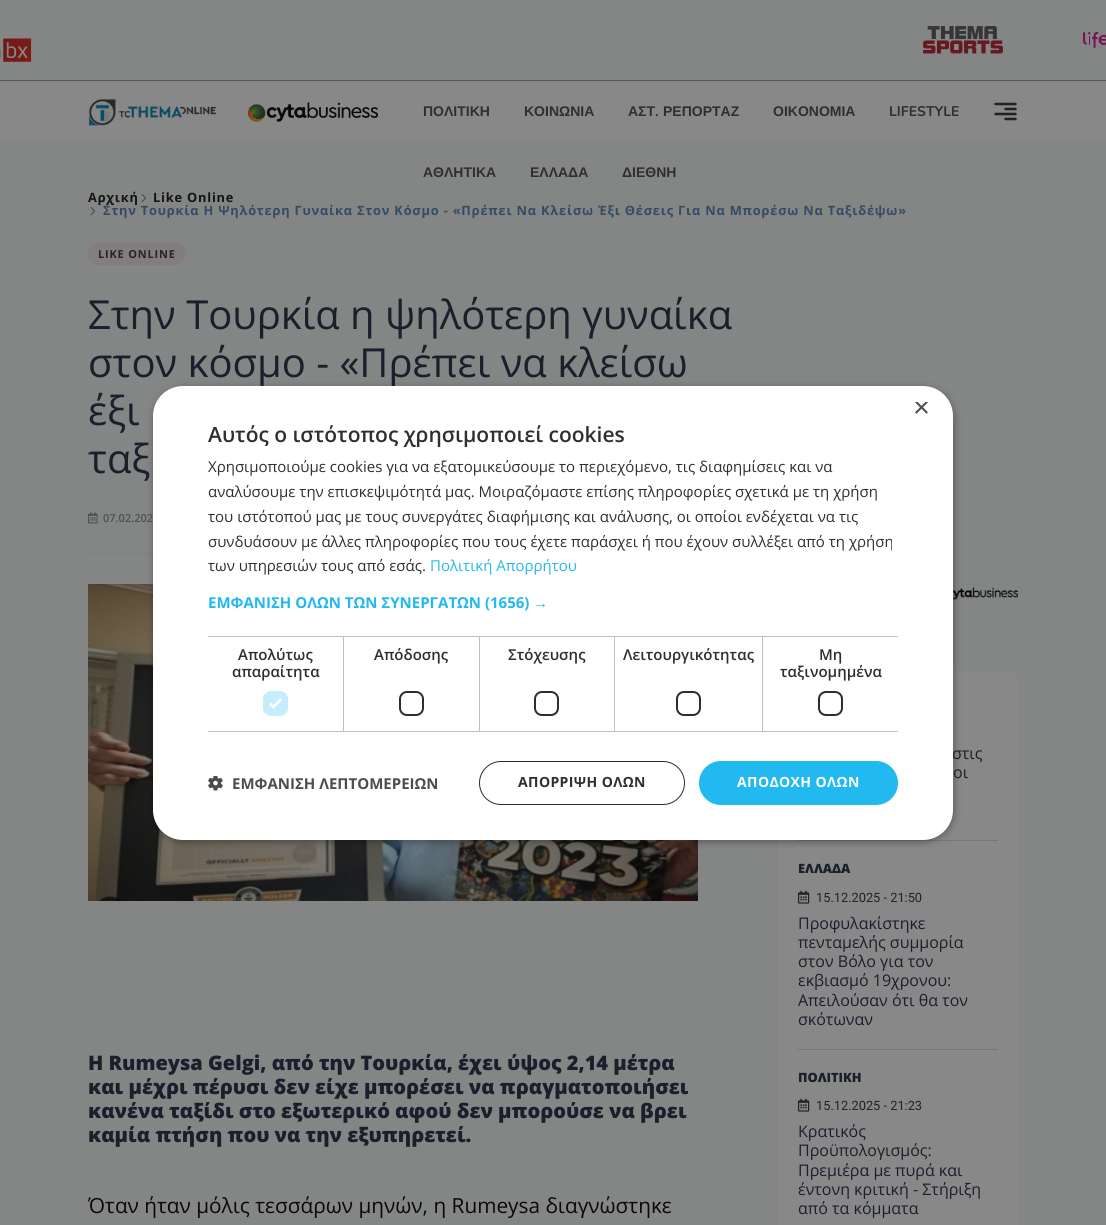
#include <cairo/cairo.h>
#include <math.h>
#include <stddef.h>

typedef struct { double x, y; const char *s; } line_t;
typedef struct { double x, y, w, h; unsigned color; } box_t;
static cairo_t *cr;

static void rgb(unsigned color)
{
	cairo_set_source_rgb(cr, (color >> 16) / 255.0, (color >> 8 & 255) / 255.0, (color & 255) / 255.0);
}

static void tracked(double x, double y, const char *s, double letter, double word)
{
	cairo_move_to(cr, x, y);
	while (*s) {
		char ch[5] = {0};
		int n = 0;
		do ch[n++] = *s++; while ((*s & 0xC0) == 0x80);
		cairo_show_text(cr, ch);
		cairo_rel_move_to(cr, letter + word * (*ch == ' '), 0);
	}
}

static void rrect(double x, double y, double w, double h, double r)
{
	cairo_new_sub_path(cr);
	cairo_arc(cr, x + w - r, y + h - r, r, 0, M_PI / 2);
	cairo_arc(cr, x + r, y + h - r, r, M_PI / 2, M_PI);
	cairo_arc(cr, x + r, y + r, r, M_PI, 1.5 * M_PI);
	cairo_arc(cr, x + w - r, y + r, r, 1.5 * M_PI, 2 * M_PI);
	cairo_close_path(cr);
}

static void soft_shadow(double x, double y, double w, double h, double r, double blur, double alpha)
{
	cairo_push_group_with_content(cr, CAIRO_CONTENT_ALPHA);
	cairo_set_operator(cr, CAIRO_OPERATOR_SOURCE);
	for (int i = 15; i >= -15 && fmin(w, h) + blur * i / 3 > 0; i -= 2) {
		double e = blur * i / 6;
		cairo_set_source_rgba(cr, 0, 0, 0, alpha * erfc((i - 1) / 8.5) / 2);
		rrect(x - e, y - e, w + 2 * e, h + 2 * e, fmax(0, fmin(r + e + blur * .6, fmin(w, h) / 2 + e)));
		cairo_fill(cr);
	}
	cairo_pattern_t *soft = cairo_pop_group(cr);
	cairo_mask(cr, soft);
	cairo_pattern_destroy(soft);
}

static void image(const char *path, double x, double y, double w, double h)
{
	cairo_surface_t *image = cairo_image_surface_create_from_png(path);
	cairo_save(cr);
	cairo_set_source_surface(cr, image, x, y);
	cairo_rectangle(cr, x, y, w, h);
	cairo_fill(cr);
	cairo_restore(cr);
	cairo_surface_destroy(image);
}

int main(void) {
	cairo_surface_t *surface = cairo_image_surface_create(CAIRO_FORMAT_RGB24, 1106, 1225);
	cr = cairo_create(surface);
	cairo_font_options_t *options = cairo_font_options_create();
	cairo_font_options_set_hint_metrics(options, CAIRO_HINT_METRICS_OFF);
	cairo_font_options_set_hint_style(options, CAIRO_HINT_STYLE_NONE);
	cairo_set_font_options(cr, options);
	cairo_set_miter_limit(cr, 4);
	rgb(0x848585);
	cairo_paint(cr);
	rgb(0x555555);
	cairo_rectangle(cr, 0, 80, 1106, 1);
	cairo_fill(cr);
	image("img/1.png", 0, 38, 32, 24);
	image("img/2.png", 923, 26, 80, 28);
	image("img/3.png", 1083, 32, 23, 16);
	rgb(0x888888);
	cairo_rectangle(cr, 0, 81, 1106, 60);
	cairo_fill(cr);
	image("img/4.png", 88, 98, 129, 31);
	image("img/5.png", 248, 102, 130, 20);
	image("img/6.png", 994, 102, 23, 19);
	image("img/7.png", 141, 194, 5, 9);
	image("img/7.png", 90, 207, 5, 9);
	rgb(0x847d7f);
	rrect(88, 242, 98, 23, 11.5);
	cairo_fill(cr);
	image("img/8.png", 88, 512, 10, 12);
	rgb(0x7f7f7f);
	cairo_rectangle(cr, 88, 553, 65, 1);
	cairo_fill(cr);
	image("img/9.png", 88, 584, 610, 317);
	image("img/10.png", 953, 587, 65, 13);
	rgb(0x888888);
	rrect(778, 671, 240, 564, 10);
	cairo_fill(cr);
	rgb(0x777777);
	cairo_rectangle(cr, 798, 840, 200, 1);
	cairo_fill(cr);
	image("img/11.png", 798, 890, 12, 14);
	cairo_rectangle(cr, 798, 1049, 200, 1);
	cairo_fill(cr);
	image("img/11.png", 798, 1098, 12, 14);
	rgb(0x000000);
	soft_shadow(154, 388, 800, 454, 30, 4, 0.35);
	cairo_select_font_face(cr, "Liberation Sans", CAIRO_FONT_SLANT_NORMAL, CAIRO_FONT_WEIGHT_BOLD);
	cairo_set_font_size(cr, 14);
	rgb(0x2f2f2f);
	{
		static const line_t items[] = {
			{423, 116, "ΠΟΛΙΤΙΚΗ"},
			{524, 116, "ΚΟΙΝΩΝΙΑ"},
			{628, 116, "ΑΣΤ"},
		};
		for (size_t i = 0; i < sizeof items / sizeof *items; i++) {
			cairo_move_to(cr, items[i].x, items[i].y);
			cairo_show_text(cr, items[i].s);
		}
	}
	cairo_select_font_face(cr, "Nunito", CAIRO_FONT_SLANT_NORMAL, CAIRO_FONT_WEIGHT_BOLD);
	cairo_move_to(cr, 655, 116);
	cairo_show_text(cr, ".");
	cairo_select_font_face(cr, "Liberation Sans", CAIRO_FONT_SLANT_NORMAL, CAIRO_FONT_WEIGHT_BOLD);
	cairo_move_to(cr, 663, 116);
	cairo_show_text(cr, "ΡΕΠΟΡΤΑΖ");
	cairo_move_to(cr, 773, 116);
	cairo_show_text(cr, "ΟΙΚΟΝΟΜΙΑ");
	cairo_select_font_face(cr, "Nunito", CAIRO_FONT_SLANT_NORMAL, CAIRO_FONT_WEIGHT_BOLD);
	cairo_move_to(cr, 889, 116);
	cairo_show_text(cr, "LIFESTYLE");
	cairo_select_font_face(cr, "Liberation Sans", CAIRO_FONT_SLANT_NORMAL, CAIRO_FONT_WEIGHT_BOLD);
	{
		static const line_t items[] = {
			{423, 177, "ΑΘΛΗΤΙΚΑ"},
			{530, 177, "ΕΛΛΑΔΑ"},
			{622, 177, "ΔΙΕΘΝΗ"},
		};
		for (size_t i = 0; i < sizeof items / sizeof *items; i++) {
			cairo_move_to(cr, items[i].x, items[i].y);
			cairo_show_text(cr, items[i].s);
		}
	}
	cairo_select_font_face(cr, "Open Sans", CAIRO_FONT_SLANT_NORMAL, CAIRO_FONT_WEIGHT_BOLD);
	cairo_set_font_size(cr, 12.8);
	rgb(0x141414);
	tracked(88, 202, "Αρχική", 0.8, 0);
	tracked(153, 202, "Like Online", 0.8, 0);
	rgb(0x334c64);
	tracked(103, 215, "Στην Τουρκία Η Ψηλότερη Γυναίκα Στον Κόσμο - «Πρέπει Να Κλείσω Έξι Θέσεις Για Να Μπορέσω Να Ταξιδέψω»", 0.8, 0);
	cairo_set_font_size(cr, 11);
	rgb(0x232629);
	tracked(98, 258, "LIKE ONLINE", 0.8, 0);
	cairo_select_font_face(cr, "Open Sans", CAIRO_FONT_SLANT_NORMAL, CAIRO_FONT_WEIGHT_NORMAL);
	cairo_set_font_size(cr, 40);
	rgb(0x191f2b);
	{
		static const line_t items[] = {
			{88, 329, "Στην Τουρκία η ψηλότερη γυναίκα"},
			{88, 377, "στον κόσμο - «Πρέπει να κλείσω"},
			{88, 425, "έξι"},
			{88, 473, "ταξ"},
		};
		for (size_t i = 0; i < sizeof items / sizeof *items; i++) {
			cairo_move_to(cr, items[i].x, items[i].y);
			cairo_show_text(cr, items[i].s);
		}
	}
	cairo_select_font_face(cr, "Open Sans SemiBold", CAIRO_FONT_SLANT_NORMAL, CAIRO_FONT_WEIGHT_NORMAL);
	cairo_set_font_size(cr, 11);
	rgb(0x4d5154);
	cairo_move_to(cr, 103, 522);
	cairo_show_text(cr, "07.02.202");
	cairo_select_font_face(cr, "Open Sans ExtraBold", CAIRO_FONT_SLANT_NORMAL, CAIRO_FONT_WEIGHT_NORMAL);
	cairo_set_font_size(cr, 20);
	rgb(0x191f2b);
	{
		static const line_t items[] = {
			{88, 1070, "Η Rumeysa Gelgi, από την Τουρκία, έχει ύψος 2,14 μέτρα"},
			{88, 1094, "και μέχρι πέρυσι δεν είχε μπορέσει να πραγματοποιήσει"},
			{88, 1118, "κανένα ταξίδι στο εξωτερικό αφού δεν μπορούσε να βρει"},
			{88, 1142, "καμία πτήση που να την εξυπηρετεί."},
		};
		for (size_t i = 0; i < sizeof items / sizeof *items; i++) {
			cairo_move_to(cr, items[i].x, items[i].y);
			cairo_show_text(cr, items[i].s);
		}
	}
	cairo_select_font_face(cr, "Open Sans", CAIRO_FONT_SLANT_NORMAL, CAIRO_FONT_WEIGHT_NORMAL);
	cairo_set_font_size(cr, 20.8);
	rgb(0x090909);
	cairo_move_to(cr, 88, 1213);
	cairo_show_text(cr, "Όταν ήταν μόλις τεσσάρων μηνών, η Rumeysa διαγνώστηκε");
	cairo_set_font_size(cr, 16);
	rgb(0x191f2b);
	cairo_move_to(cr, 952, 759);
	cairo_show_text(cr, "στις");
	cairo_move_to(cr, 953, 778);
	cairo_show_text(cr, "οι");
	cairo_select_font_face(cr, "Open Sans ExtraBold", CAIRO_FONT_SLANT_NORMAL, CAIRO_FONT_WEIGHT_NORMAL);
	cairo_set_font_size(cr, 12.8);
	cairo_move_to(cr, 798, 873);
	cairo_show_text(cr, "ΕΛΛΑΔΑ");
	cairo_select_font_face(cr, "Roboto", CAIRO_FONT_SLANT_NORMAL, CAIRO_FONT_WEIGHT_NORMAL);
	rgb(0x222222);
	cairo_move_to(cr, 816, 902);
	cairo_show_text(cr, "15.12.2025 - 21:50");
	cairo_select_font_face(cr, "Open Sans", CAIRO_FONT_SLANT_NORMAL, CAIRO_FONT_WEIGHT_NORMAL);
	cairo_set_font_size(cr, 16);
	rgb(0x191f2b);
	{
		static const line_t items[] = {
			{798, 929, "Προφυλακίστηκε"},
			{798, 948, "πενταμελής συμμορία"},
			{798, 967, "στον Βόλο για τον"},
			{798, 986, "εκβιασμό 19χρονου:"},
			{798, 1006, "Απειλούσαν ότι θα τον"},
			{798, 1025, "σκότωναν"},
		};
		for (size_t i = 0; i < sizeof items / sizeof *items; i++) {
			cairo_move_to(cr, items[i].x, items[i].y);
			cairo_show_text(cr, items[i].s);
		}
	}
	cairo_select_font_face(cr, "Open Sans ExtraBold", CAIRO_FONT_SLANT_NORMAL, CAIRO_FONT_WEIGHT_NORMAL);
	cairo_set_font_size(cr, 12.8);
	cairo_move_to(cr, 798, 1082);
	cairo_show_text(cr, "ΠΟΛΙΤΙΚΗ");
	cairo_select_font_face(cr, "Roboto", CAIRO_FONT_SLANT_NORMAL, CAIRO_FONT_WEIGHT_NORMAL);
	rgb(0x222222);
	cairo_move_to(cr, 816, 1110);
	cairo_show_text(cr, "15.12.2025 - 21:23");
	cairo_select_font_face(cr, "Open Sans", CAIRO_FONT_SLANT_NORMAL, CAIRO_FONT_WEIGHT_NORMAL);
	cairo_set_font_size(cr, 16);
	rgb(0x191f2b);
	{
		static const line_t items[] = {
			{798, 1137, "Κρατικός"},
			{798, 1156, "Προϋπολογισμός:"},
			{798, 1176, "Πρεμιέρα με πυρά και"},
			{798, 1195, "έντονη κριτική - Στήριξη"},
			{798, 1214, "από τα κόμματα"},
		};
		for (size_t i = 0; i < sizeof items / sizeof *items; i++) {
			cairo_move_to(cr, items[i].x, items[i].y);
			cairo_show_text(cr, items[i].s);
		}
	}
	rgb(0xffffff);
	rrect(153, 386, 800, 454, 30);
	cairo_fill(cr);
	cairo_save(cr);
	cairo_rectangle(cr, 913, 402, 15, 15);
	cairo_clip(cr);
	cairo_select_font_face(cr, "Liberation Sans", CAIRO_FONT_SLANT_NORMAL, CAIRO_FONT_WEIGHT_NORMAL);
	cairo_set_font_size(cr, 29);
	rgb(0x4d4d4d);
	cairo_move_to(cr, 913, 417);
	cairo_show_text(cr, "×");
	cairo_restore(cr);
	cairo_select_font_face(cr, "Open Sans SemiBold", CAIRO_FONT_SLANT_NORMAL, CAIRO_FONT_WEIGHT_NORMAL);
	cairo_set_font_size(cr, 21);
	rgb(0x2f2f2f);
	cairo_move_to(cr, 208, 442);
	cairo_show_text(cr, "Αυτός ο ιστότοπος χρησιμοποιεί cookies");
	cairo_select_font_face(cr, "Open Sans", CAIRO_FONT_SLANT_NORMAL, CAIRO_FONT_WEIGHT_NORMAL);
	cairo_set_font_size(cr, 15);
	{
		static const line_t items[] = {
			{208, 472, "Χρησιμοποιούμε cookies για να εξατομικεύσουμε το περιεχόμενο, τις διαφημίσεις και να"},
			{208, 497, "αναλύσουμε την επισκεψιμότητά μας. Μοιραζόμαστε επίσης πληροφορίες σχετικά με τη χρήση"},
			{208, 522, "του ιστότοπού μας με τους συνεργάτες διαφήμισης και ανάλυσης, οι οποίοι ενδέχεται να τις"},
			{208, 547, "συνδυάσουν με άλλες πληροφορίες που τους έχετε παράσχει ή που έχουν συλλέξει από τη χρήση"},
			{208, 571, "των υπηρεσιών τους από εσάς."},
		};
		for (size_t i = 0; i < sizeof items / sizeof *items; i++) {
			cairo_move_to(cr, items[i].x, items[i].y);
			cairo_show_text(cr, items[i].s);
		}
	}
	rgb(0x22b8f0);
	cairo_move_to(cr, 430, 571);
	cairo_show_text(cr, "Πολιτική Απορρήτου");
	cairo_select_font_face(cr, "Open Sans", CAIRO_FONT_SLANT_NORMAL, CAIRO_FONT_WEIGHT_BOLD);
	cairo_move_to(cr, 208, 608);
	cairo_show_text(cr, "ΕΜΦΑΝΙΣΗ ΟΛΩΝ ΤΩΝ ΣΥΝΕΡΓΑΤΩΝ (1656)");
	cairo_select_font_face(cr, "Liberation Sans", CAIRO_FONT_SLANT_NORMAL, CAIRO_FONT_WEIGHT_BOLD);
	cairo_move_to(cr, 533, 608);
	cairo_show_text(cr, "→");
	{
		static const box_t items[] = {
			{208, 636, 690, 1, 0xc0c0c0},
			{343, 636, 1, 96, 0xc0c0c0},
			{208, 731, 136, 1, 0xc0c0c0},
		};
		for (size_t i = 0; i < sizeof items / sizeof *items; i++) {
			rgb(items[i].color);
			cairo_rectangle(cr, items[i].x, items[i].y, items[i].w, items[i].h);
			cairo_fill(cr);
		}
	}
	cairo_select_font_face(cr, "Open Sans SemiBold", CAIRO_FONT_SLANT_NORMAL, CAIRO_FONT_WEIGHT_NORMAL);
	rgb(0x2f2f2f);
	cairo_move_to(cr, 238, 660);
	cairo_show_text(cr, "Απολύτως");
	cairo_move_to(cr, 232, 677);
	cairo_show_text(cr, "απαραίτητα");
	rgb(0xc6edfb);
	rrect(263, 691, 25, 25, 8);
	cairo_fill(cr);
	cairo_new_path(cr);
	cairo_move_to(cr, 270, 703.5);
	cairo_line_to(cr, 273.5, 707);
	cairo_line_to(cr, 281, 699);
	rgb(0xffffff);
	cairo_set_line_width(cr, 2.6);
	cairo_stroke(cr);
	rgb(0xc0c0c0);
	cairo_rectangle(cr, 479, 636, 1, 96);
	cairo_fill(cr);
	cairo_rectangle(cr, 344, 731, 136, 1);
	cairo_fill(cr);
	rgb(0x2f2f2f);
	cairo_move_to(cr, 374, 660);
	cairo_show_text(cr, "Απόδοσης");
	rrect(400, 692, 23, 23, 7);
	rgb(0x2d2d2d);
	cairo_set_line_width(cr, 2);
	cairo_stroke(cr);
	rgb(0xc0c0c0);
	cairo_rectangle(cr, 614, 636, 1, 96);
	cairo_fill(cr);
	cairo_rectangle(cr, 480, 731, 135, 1);
	cairo_fill(cr);
	rgb(0x2f2f2f);
	cairo_move_to(cr, 508, 660);
	cairo_show_text(cr, "Στόχευσης");
	rrect(535, 692, 23, 23, 7);
	rgb(0x2d2d2d);
	cairo_stroke(cr);
	rgb(0xc0c0c0);
	cairo_rectangle(cr, 762, 636, 1, 96);
	cairo_fill(cr);
	cairo_rectangle(cr, 615, 731, 283, 1);
	cairo_fill(cr);
	rgb(0x2f2f2f);
	cairo_move_to(cr, 623, 660);
	cairo_show_text(cr, "Λειτουργικότητας");
	rrect(677, 692, 23, 23, 7);
	rgb(0x2d2d2d);
	cairo_stroke(cr);
	rgb(0x2f2f2f);
	cairo_move_to(cr, 819, 660);
	cairo_show_text(cr, "Μη");
	cairo_move_to(cr, 780, 677);
	cairo_show_text(cr, "ταξινομημένα");
	rrect(819, 692, 23, 23, 7);
	rgb(0x2d2d2d);
	cairo_stroke(cr);
	image("img/12.png", 208, 776, 15, 15);
	cairo_select_font_face(cr, "Open Sans", CAIRO_FONT_SLANT_NORMAL, CAIRO_FONT_WEIGHT_BOLD);
	rgb(0x4d4d4d);
	cairo_move_to(cr, 232, 789);
	cairo_show_text(cr, "ΕΜΦΑΝΙΣΗ ΛΕΠΤΟΜΕΡΕΙΩΝ");
	rrect(479.5, 761.5, 205, 43, 21.5);
	rgb(0x2d2d2d);
	cairo_set_line_width(cr, 1);
	cairo_stroke(cr);
	cairo_set_font_size(cr, 14);
	rgb(0x2f2f2f);
	tracked(518, 787, "ΑΠΟΡΡΙΨΗ ΟΛΩΝ", 0.4, 0);
	rgb(0x22b8f0);
	rrect(699, 761, 199, 44, 22);
	cairo_fill(cr);
	rgb(0xffffff);
	tracked(737, 787, "ΑΠΟΔΟΧΗ ΟΛΩΝ", 0.4, 0);
	cairo_surface_write_to_png(surface, "page.png");
	cairo_font_options_destroy(options);
	cairo_destroy(cr);
	cairo_surface_destroy(surface);
	return 0;
}
